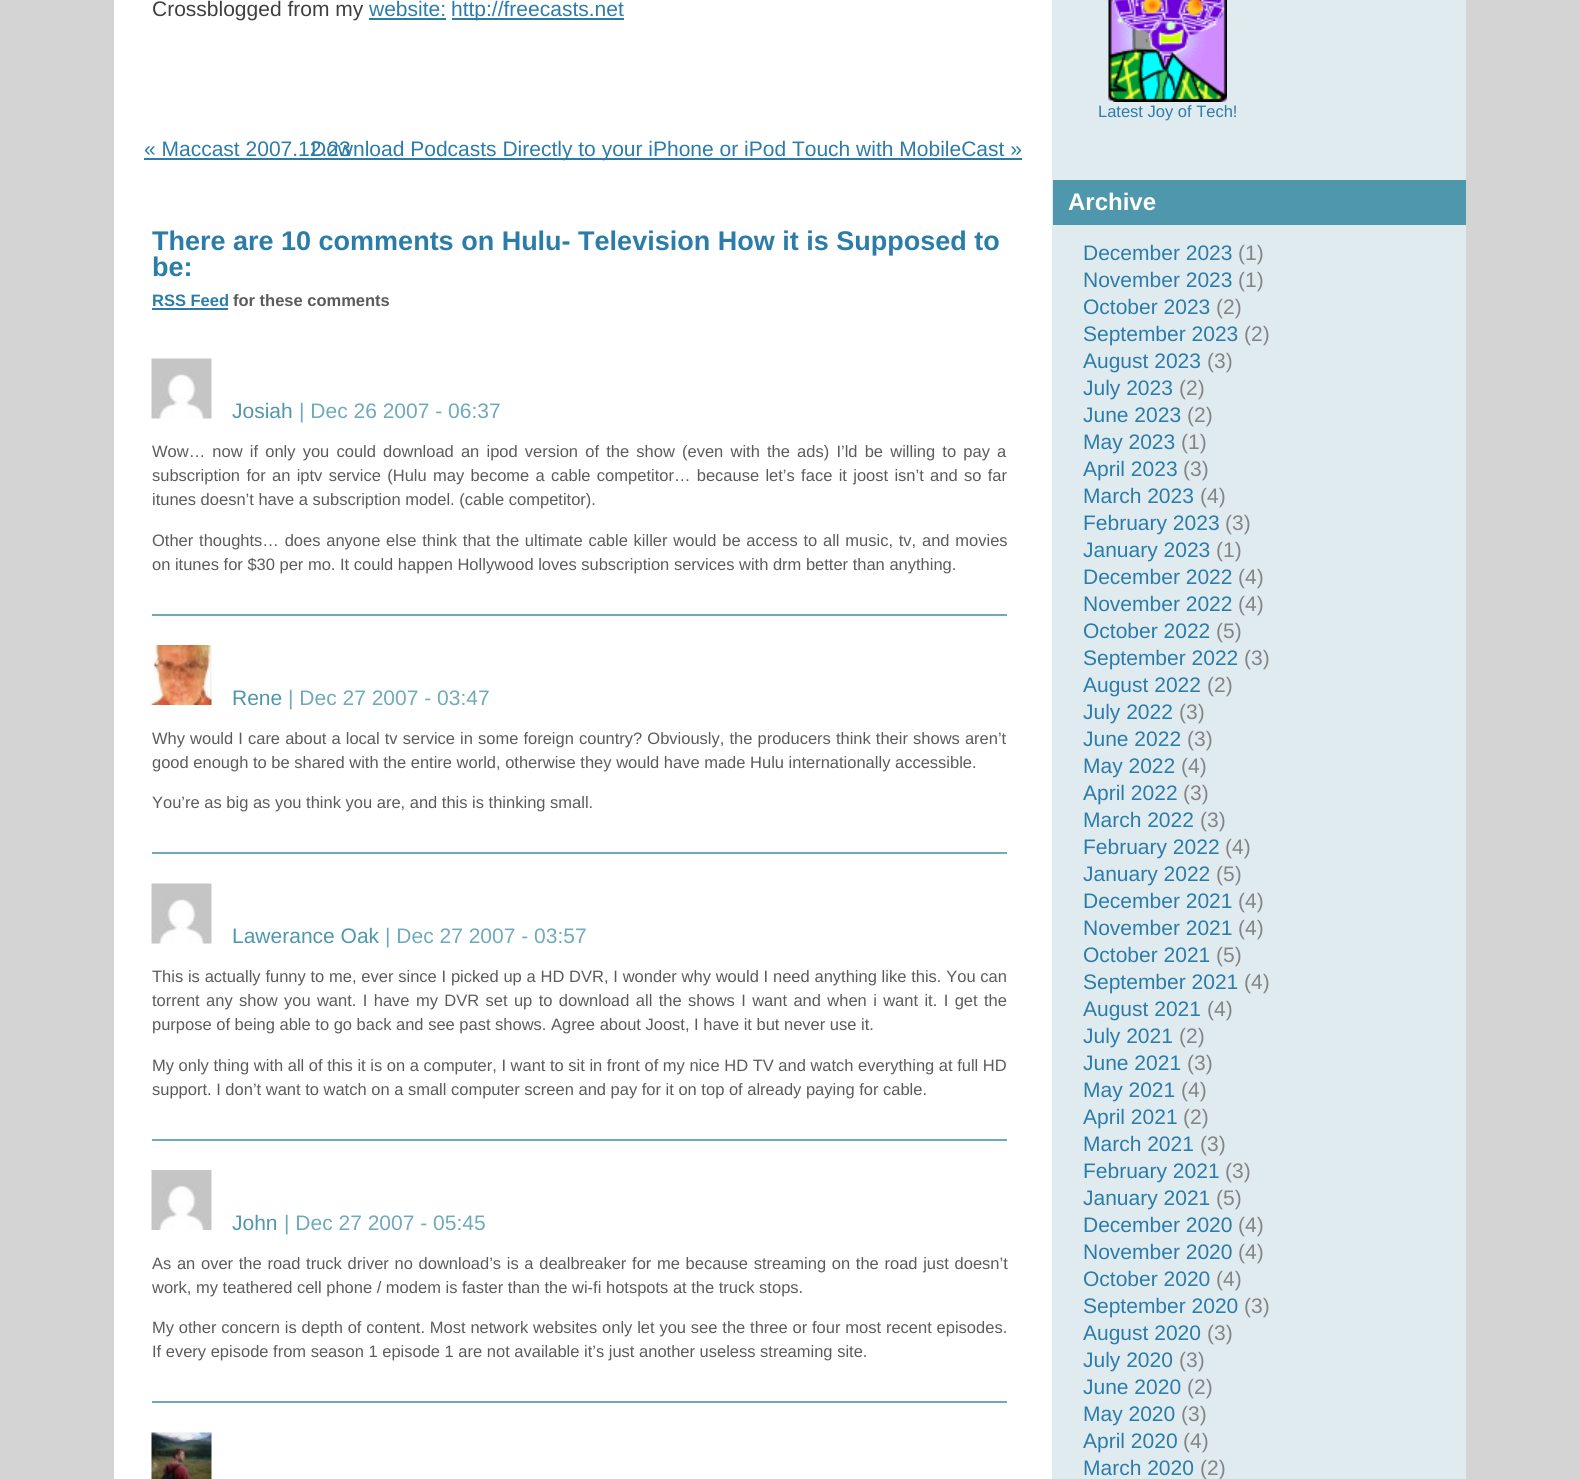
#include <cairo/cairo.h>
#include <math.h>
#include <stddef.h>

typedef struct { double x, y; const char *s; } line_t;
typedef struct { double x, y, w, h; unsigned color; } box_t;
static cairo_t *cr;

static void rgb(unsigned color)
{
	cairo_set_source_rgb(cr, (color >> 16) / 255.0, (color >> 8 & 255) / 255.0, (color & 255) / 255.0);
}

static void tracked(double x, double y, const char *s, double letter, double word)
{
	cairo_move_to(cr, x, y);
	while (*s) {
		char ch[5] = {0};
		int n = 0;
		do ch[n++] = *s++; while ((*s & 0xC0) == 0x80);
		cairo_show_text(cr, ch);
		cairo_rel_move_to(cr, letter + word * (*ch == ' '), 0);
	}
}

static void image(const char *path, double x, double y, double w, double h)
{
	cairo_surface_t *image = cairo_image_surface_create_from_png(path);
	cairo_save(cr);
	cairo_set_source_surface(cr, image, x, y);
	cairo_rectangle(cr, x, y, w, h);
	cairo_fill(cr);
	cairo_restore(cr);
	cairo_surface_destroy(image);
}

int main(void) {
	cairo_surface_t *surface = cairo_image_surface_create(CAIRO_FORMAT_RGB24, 1579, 1479);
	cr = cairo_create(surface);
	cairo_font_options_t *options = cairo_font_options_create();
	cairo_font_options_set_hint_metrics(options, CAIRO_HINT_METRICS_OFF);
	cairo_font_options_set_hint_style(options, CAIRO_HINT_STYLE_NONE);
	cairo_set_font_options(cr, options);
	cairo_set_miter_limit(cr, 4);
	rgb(0xd4d4d4);
	cairo_paint(cr);
	{
		static const box_t items[] = {
			{1052, 0, 414, 1479, 0xe0ebf0},
			{114, 0, 938, 1479, 0xffffff},
			{369, 18, 77, 2, 0x2c7ca9},
			{452, 18, 172, 2, 0x2c7ca9},
			{144, 158, 878, 2, 0x2c7ca9},
			{152, 308, 76, 2, 0x2c7ca9},
			{152, 614, 855, 2, 0x6faabb},
		};
		for (size_t i = 0; i < sizeof items / sizeof *items; i++) {
			rgb(items[i].color);
			cairo_rectangle(cr, items[i].x, items[i].y, items[i].w, items[i].h);
			cairo_fill(cr);
		}
	}
	image("img/1.png", 151, 358, 61, 61);
	cairo_rectangle(cr, 152, 852, 855, 2);
	cairo_fill(cr);
	image("img/2.png", 151, 645, 61, 60);
	cairo_rectangle(cr, 152, 1139, 855, 2);
	cairo_fill(cr);
	image("img/1.png", 151, 883, 61, 61);
	cairo_rectangle(cr, 152, 1401, 855, 2);
	cairo_fill(cr);
	image("img/3.png", 151, 1170, 61, 60);
	image("img/4.png", 151, 1432, 61, 47);
	image("img/5.png", 1108, 0, 119, 102);
	rgb(0x4f97ac);
	cairo_rectangle(cr, 1053, 180, 413, 45);
	cairo_fill(cr);
	cairo_select_font_face(cr, "Liberation Sans", CAIRO_FONT_SLANT_NORMAL, CAIRO_FONT_WEIGHT_NORMAL);
	cairo_set_font_size(cr, 21);
	rgb(0x3f3f3f);
	cairo_move_to(cr, 152, 16);
	cairo_show_text(cr, "Crossblogged from my");
	rgb(0x2c7ca9);
	{
		static const line_t items[] = {
			{369, 16, "website:"},
			{451, 16, "http://freecasts.net"},
			{144, 156, "« Maccast 2007.12.23"},
			{311, 156, "Download Podcasts Directly to your iPhone or iPod Touch with MobileCast »"},
		};
		for (size_t i = 0; i < sizeof items / sizeof *items; i++) {
			cairo_move_to(cr, items[i].x, items[i].y);
			cairo_show_text(cr, items[i].s);
		}
	}
	cairo_select_font_face(cr, "Liberation Sans", CAIRO_FONT_SLANT_NORMAL, CAIRO_FONT_WEIGHT_BOLD);
	cairo_set_font_size(cr, 27);
	cairo_move_to(cr, 152, 250);
	cairo_show_text(cr, "There are 10 comments on Hulu- Television How it is Supposed to");
	cairo_move_to(cr, 152, 276);
	cairo_show_text(cr, "be:");
	cairo_set_font_size(cr, 16.5);
	cairo_move_to(cr, 152, 306);
	cairo_show_text(cr, "RSS Feed");
	rgb(0x5b5b5b);
	cairo_move_to(cr, 233, 306);
	cairo_show_text(cr, "for these comments");
	cairo_select_font_face(cr, "Liberation Sans", CAIRO_FONT_SLANT_NORMAL, CAIRO_FONT_WEIGHT_NORMAL);
	cairo_set_font_size(cr, 21);
	rgb(0x4f97ac);
	cairo_move_to(cr, 232, 418);
	cairo_show_text(cr, "Josiah");
	rgb(0x6faabb);
	cairo_move_to(cr, 299, 418);
	cairo_show_text(cr, "| Dec 26 2007 - 06:37");
	cairo_set_font_size(cr, 16.5);
	rgb(0x5b5b5b);
	tracked(152, 457, "Wow… now if only you could download an ipod version of the show (even with the ads) I’ld be willing to pay a", 0, 2.6);
	tracked(152, 481, "subscription for an iptv service (Hulu may become a cable competitor… because let’s face it joost isn’t and so far", 0, 1.75);
	cairo_move_to(cr, 152, 505);
	cairo_show_text(cr, "itunes doesn’t have a subscription model. (cable competitor).");
	tracked(152, 546, "Other thoughts… does anyone else think that the ultimate cable killer would be access to all music, tv, and movies", 0, 1.2);
	cairo_move_to(cr, 152, 570);
	cairo_show_text(cr, "on itunes for $30 per mo. It could happen Hollywood loves subscription services with drm better than anything.");
	cairo_set_font_size(cr, 21);
	rgb(0x4f97ac);
	cairo_move_to(cr, 232, 705);
	cairo_show_text(cr, "Rene");
	rgb(0x6faabb);
	cairo_move_to(cr, 288, 705);
	cairo_show_text(cr, "| Dec 27 2007 - 03:47");
	cairo_set_font_size(cr, 16.5);
	rgb(0x5b5b5b);
	tracked(152, 744, "Why would I care about a local tv service in some foreign country? Obviously, the producers think their shows aren’t", 0, 0.5);
	cairo_move_to(cr, 152, 768);
	cairo_show_text(cr, "good enough to be shared with the entire world, otherwise they would have made Hulu internationally accessible.");
	cairo_move_to(cr, 152, 808);
	cairo_show_text(cr, "You’re as big as you think you are, and this is thinking small.");
	cairo_set_font_size(cr, 21);
	rgb(0x4f97ac);
	cairo_move_to(cr, 232, 943);
	cairo_show_text(cr, "Lawerance Oak");
	rgb(0x6faabb);
	cairo_move_to(cr, 385, 943);
	cairo_show_text(cr, "| Dec 27 2007 - 03:57");
	cairo_set_font_size(cr, 16.5);
	rgb(0x5b5b5b);
	tracked(152, 982, "This is actually funny to me, ever since I picked up a HD DVR, I wonder why would I need anything like this. You can", 0, 0.2);
	tracked(152, 1006, "torrent any show you want. I have my DVR set up to download all the shows I want and when i want it. I get the", 0, 1.8);
	{
		static const line_t items[] = {
			{152, 1030, "purpose of being able to go back and see past shows. Agree about Joost, I have it but never use it."},
			{152, 1071, "My only thing with all of this it is on a computer, I want to sit in front of my nice HD TV and watch everything at full HD"},
			{152, 1095, "support. I don’t want to watch on a small computer screen and pay for it on top of already paying for cable."},
		};
		for (size_t i = 0; i < sizeof items / sizeof *items; i++) {
			cairo_move_to(cr, items[i].x, items[i].y);
			cairo_show_text(cr, items[i].s);
		}
	}
	cairo_set_font_size(cr, 21);
	rgb(0x4f97ac);
	cairo_move_to(cr, 232, 1230);
	cairo_show_text(cr, "John");
	rgb(0x6faabb);
	cairo_move_to(cr, 284, 1230);
	cairo_show_text(cr, "| Dec 27 2007 - 05:45");
	cairo_set_font_size(cr, 16.5);
	rgb(0x5b5b5b);
	tracked(152, 1269, "As an over the road truck driver no download’s is a dealbreaker for me because streaming on the road just doesn’t", 0, 1.1);
	cairo_move_to(cr, 152, 1293);
	cairo_show_text(cr, "work, my teathered cell phone / modem is faster than the wi-fi hotspots at the truck stops.");
	tracked(152, 1333, "My other concern is depth of content. Most network websites only let you see the three or four most recent episodes.", 0, 0.25);
	cairo_move_to(cr, 152, 1357);
	cairo_show_text(cr, "If every episode from season 1 episode 1 are not available it’s just another useless streaming site.");
	rgb(0x2c7ca9);
	cairo_move_to(cr, 1098, 117);
	cairo_show_text(cr, "Latest Joy of Tech!");
	cairo_select_font_face(cr, "Liberation Sans", CAIRO_FONT_SLANT_NORMAL, CAIRO_FONT_WEIGHT_BOLD);
	cairo_set_font_size(cr, 24);
	rgb(0xffffff);
	cairo_move_to(cr, 1068, 210);
	cairo_show_text(cr, "Archive");
	cairo_select_font_face(cr, "Liberation Sans", CAIRO_FONT_SLANT_NORMAL, CAIRO_FONT_WEIGHT_NORMAL);
	cairo_set_font_size(cr, 21);
	rgb(0x2c7ca9);
	cairo_move_to(cr, 1083, 260);
	cairo_show_text(cr, "December 2023");
	rgb(0x848484);
	cairo_move_to(cr, 1238, 260);
	cairo_show_text(cr, "(1)");
	rgb(0x2c7ca9);
	cairo_move_to(cr, 1083, 287);
	cairo_show_text(cr, "November 2023");
	rgb(0x848484);
	cairo_move_to(cr, 1238, 287);
	cairo_show_text(cr, "(1)");
	rgb(0x2c7ca9);
	cairo_move_to(cr, 1083, 314);
	cairo_show_text(cr, "October 2023");
	rgb(0x848484);
	cairo_move_to(cr, 1216, 314);
	cairo_show_text(cr, "(2)");
	rgb(0x2c7ca9);
	cairo_move_to(cr, 1083, 341);
	cairo_show_text(cr, "September 2023");
	rgb(0x848484);
	cairo_move_to(cr, 1244, 341);
	cairo_show_text(cr, "(2)");
	rgb(0x2c7ca9);
	cairo_move_to(cr, 1083, 368);
	cairo_show_text(cr, "August 2023");
	rgb(0x848484);
	cairo_move_to(cr, 1207, 368);
	cairo_show_text(cr, "(3)");
	rgb(0x2c7ca9);
	cairo_move_to(cr, 1083, 395);
	cairo_show_text(cr, "July 2023");
	rgb(0x848484);
	cairo_move_to(cr, 1179, 395);
	cairo_show_text(cr, "(2)");
	rgb(0x2c7ca9);
	cairo_move_to(cr, 1083, 422);
	cairo_show_text(cr, "June 2023");
	rgb(0x848484);
	cairo_move_to(cr, 1187, 422);
	cairo_show_text(cr, "(2)");
	rgb(0x2c7ca9);
	cairo_move_to(cr, 1083, 449);
	cairo_show_text(cr, "May 2023");
	rgb(0x848484);
	cairo_move_to(cr, 1181, 449);
	cairo_show_text(cr, "(1)");
	rgb(0x2c7ca9);
	cairo_move_to(cr, 1083, 476);
	cairo_show_text(cr, "April 2023");
	rgb(0x848484);
	cairo_move_to(cr, 1183, 476);
	cairo_show_text(cr, "(3)");
	rgb(0x2c7ca9);
	cairo_move_to(cr, 1083, 503);
	cairo_show_text(cr, "March 2023");
	rgb(0x848484);
	cairo_move_to(cr, 1200, 503);
	cairo_show_text(cr, "(4)");
	rgb(0x2c7ca9);
	cairo_move_to(cr, 1083, 530);
	cairo_show_text(cr, "February 2023");
	rgb(0x848484);
	cairo_move_to(cr, 1225, 530);
	cairo_show_text(cr, "(3)");
	rgb(0x2c7ca9);
	cairo_move_to(cr, 1083, 557);
	cairo_show_text(cr, "January 2023");
	rgb(0x848484);
	cairo_move_to(cr, 1216, 557);
	cairo_show_text(cr, "(1)");
	rgb(0x2c7ca9);
	cairo_move_to(cr, 1083, 584);
	cairo_show_text(cr, "December 2022");
	rgb(0x848484);
	cairo_move_to(cr, 1238, 584);
	cairo_show_text(cr, "(4)");
	rgb(0x2c7ca9);
	cairo_move_to(cr, 1083, 611);
	cairo_show_text(cr, "November 2022");
	rgb(0x848484);
	cairo_move_to(cr, 1238, 611);
	cairo_show_text(cr, "(4)");
	rgb(0x2c7ca9);
	cairo_move_to(cr, 1083, 638);
	cairo_show_text(cr, "October 2022");
	rgb(0x848484);
	cairo_move_to(cr, 1216, 638);
	cairo_show_text(cr, "(5)");
	rgb(0x2c7ca9);
	cairo_move_to(cr, 1083, 665);
	cairo_show_text(cr, "September 2022");
	rgb(0x848484);
	cairo_move_to(cr, 1244, 665);
	cairo_show_text(cr, "(3)");
	rgb(0x2c7ca9);
	cairo_move_to(cr, 1083, 692);
	cairo_show_text(cr, "August 2022");
	rgb(0x848484);
	cairo_move_to(cr, 1207, 692);
	cairo_show_text(cr, "(2)");
	rgb(0x2c7ca9);
	cairo_move_to(cr, 1083, 719);
	cairo_show_text(cr, "July 2022");
	rgb(0x848484);
	cairo_move_to(cr, 1179, 719);
	cairo_show_text(cr, "(3)");
	rgb(0x2c7ca9);
	cairo_move_to(cr, 1083, 746);
	cairo_show_text(cr, "June 2022");
	rgb(0x848484);
	cairo_move_to(cr, 1187, 746);
	cairo_show_text(cr, "(3)");
	rgb(0x2c7ca9);
	cairo_move_to(cr, 1083, 773);
	cairo_show_text(cr, "May 2022");
	rgb(0x848484);
	cairo_move_to(cr, 1181, 773);
	cairo_show_text(cr, "(4)");
	rgb(0x2c7ca9);
	cairo_move_to(cr, 1083, 800);
	cairo_show_text(cr, "April 2022");
	rgb(0x848484);
	cairo_move_to(cr, 1183, 800);
	cairo_show_text(cr, "(3)");
	rgb(0x2c7ca9);
	cairo_move_to(cr, 1083, 827);
	cairo_show_text(cr, "March 2022");
	rgb(0x848484);
	cairo_move_to(cr, 1200, 827);
	cairo_show_text(cr, "(3)");
	rgb(0x2c7ca9);
	cairo_move_to(cr, 1083, 854);
	cairo_show_text(cr, "February 2022");
	rgb(0x848484);
	cairo_move_to(cr, 1225, 854);
	cairo_show_text(cr, "(4)");
	rgb(0x2c7ca9);
	cairo_move_to(cr, 1083, 881);
	cairo_show_text(cr, "January 2022");
	rgb(0x848484);
	cairo_move_to(cr, 1216, 881);
	cairo_show_text(cr, "(5)");
	rgb(0x2c7ca9);
	cairo_move_to(cr, 1083, 908);
	cairo_show_text(cr, "December 2021");
	rgb(0x848484);
	cairo_move_to(cr, 1238, 908);
	cairo_show_text(cr, "(4)");
	rgb(0x2c7ca9);
	cairo_move_to(cr, 1083, 935);
	cairo_show_text(cr, "November 2021");
	rgb(0x848484);
	cairo_move_to(cr, 1238, 935);
	cairo_show_text(cr, "(4)");
	rgb(0x2c7ca9);
	cairo_move_to(cr, 1083, 962);
	cairo_show_text(cr, "October 2021");
	rgb(0x848484);
	cairo_move_to(cr, 1216, 962);
	cairo_show_text(cr, "(5)");
	rgb(0x2c7ca9);
	cairo_move_to(cr, 1083, 989);
	cairo_show_text(cr, "September 2021");
	rgb(0x848484);
	cairo_move_to(cr, 1244, 989);
	cairo_show_text(cr, "(4)");
	rgb(0x2c7ca9);
	cairo_move_to(cr, 1083, 1016);
	cairo_show_text(cr, "August 2021");
	rgb(0x848484);
	cairo_move_to(cr, 1207, 1016);
	cairo_show_text(cr, "(4)");
	rgb(0x2c7ca9);
	cairo_move_to(cr, 1083, 1043);
	cairo_show_text(cr, "July 2021");
	rgb(0x848484);
	cairo_move_to(cr, 1179, 1043);
	cairo_show_text(cr, "(2)");
	rgb(0x2c7ca9);
	cairo_move_to(cr, 1083, 1070);
	cairo_show_text(cr, "June 2021");
	rgb(0x848484);
	cairo_move_to(cr, 1187, 1070);
	cairo_show_text(cr, "(3)");
	rgb(0x2c7ca9);
	cairo_move_to(cr, 1083, 1097);
	cairo_show_text(cr, "May 2021");
	rgb(0x848484);
	cairo_move_to(cr, 1181, 1097);
	cairo_show_text(cr, "(4)");
	rgb(0x2c7ca9);
	cairo_move_to(cr, 1083, 1124);
	cairo_show_text(cr, "April 2021");
	rgb(0x848484);
	cairo_move_to(cr, 1183, 1124);
	cairo_show_text(cr, "(2)");
	rgb(0x2c7ca9);
	cairo_move_to(cr, 1083, 1151);
	cairo_show_text(cr, "March 2021");
	rgb(0x848484);
	cairo_move_to(cr, 1200, 1151);
	cairo_show_text(cr, "(3)");
	rgb(0x2c7ca9);
	cairo_move_to(cr, 1083, 1178);
	cairo_show_text(cr, "February 2021");
	rgb(0x848484);
	cairo_move_to(cr, 1225, 1178);
	cairo_show_text(cr, "(3)");
	rgb(0x2c7ca9);
	cairo_move_to(cr, 1083, 1205);
	cairo_show_text(cr, "January 2021");
	rgb(0x848484);
	cairo_move_to(cr, 1216, 1205);
	cairo_show_text(cr, "(5)");
	rgb(0x2c7ca9);
	cairo_move_to(cr, 1083, 1232);
	cairo_show_text(cr, "December 2020");
	rgb(0x848484);
	cairo_move_to(cr, 1238, 1232);
	cairo_show_text(cr, "(4)");
	rgb(0x2c7ca9);
	cairo_move_to(cr, 1083, 1259);
	cairo_show_text(cr, "November 2020");
	rgb(0x848484);
	cairo_move_to(cr, 1238, 1259);
	cairo_show_text(cr, "(4)");
	rgb(0x2c7ca9);
	cairo_move_to(cr, 1083, 1286);
	cairo_show_text(cr, "October 2020");
	rgb(0x848484);
	cairo_move_to(cr, 1216, 1286);
	cairo_show_text(cr, "(4)");
	rgb(0x2c7ca9);
	cairo_move_to(cr, 1083, 1313);
	cairo_show_text(cr, "September 2020");
	rgb(0x848484);
	cairo_move_to(cr, 1244, 1313);
	cairo_show_text(cr, "(3)");
	rgb(0x2c7ca9);
	cairo_move_to(cr, 1083, 1340);
	cairo_show_text(cr, "August 2020");
	rgb(0x848484);
	cairo_move_to(cr, 1207, 1340);
	cairo_show_text(cr, "(3)");
	rgb(0x2c7ca9);
	cairo_move_to(cr, 1083, 1367);
	cairo_show_text(cr, "July 2020");
	rgb(0x848484);
	cairo_move_to(cr, 1179, 1367);
	cairo_show_text(cr, "(3)");
	rgb(0x2c7ca9);
	cairo_move_to(cr, 1083, 1394);
	cairo_show_text(cr, "June 2020");
	rgb(0x848484);
	cairo_move_to(cr, 1187, 1394);
	cairo_show_text(cr, "(2)");
	rgb(0x2c7ca9);
	cairo_move_to(cr, 1083, 1421);
	cairo_show_text(cr, "May 2020");
	rgb(0x848484);
	cairo_move_to(cr, 1181, 1421);
	cairo_show_text(cr, "(3)");
	rgb(0x2c7ca9);
	cairo_move_to(cr, 1083, 1448);
	cairo_show_text(cr, "April 2020");
	rgb(0x848484);
	cairo_move_to(cr, 1183, 1448);
	cairo_show_text(cr, "(4)");
	rgb(0x2c7ca9);
	cairo_move_to(cr, 1083, 1475);
	cairo_show_text(cr, "March 2020");
	rgb(0x848484);
	cairo_move_to(cr, 1200, 1475);
	cairo_show_text(cr, "(2)");
	cairo_surface_write_to_png(surface, "page.png");
	cairo_font_options_destroy(options);
	cairo_destroy(cr);
	cairo_surface_destroy(surface);
	return 0;
}
